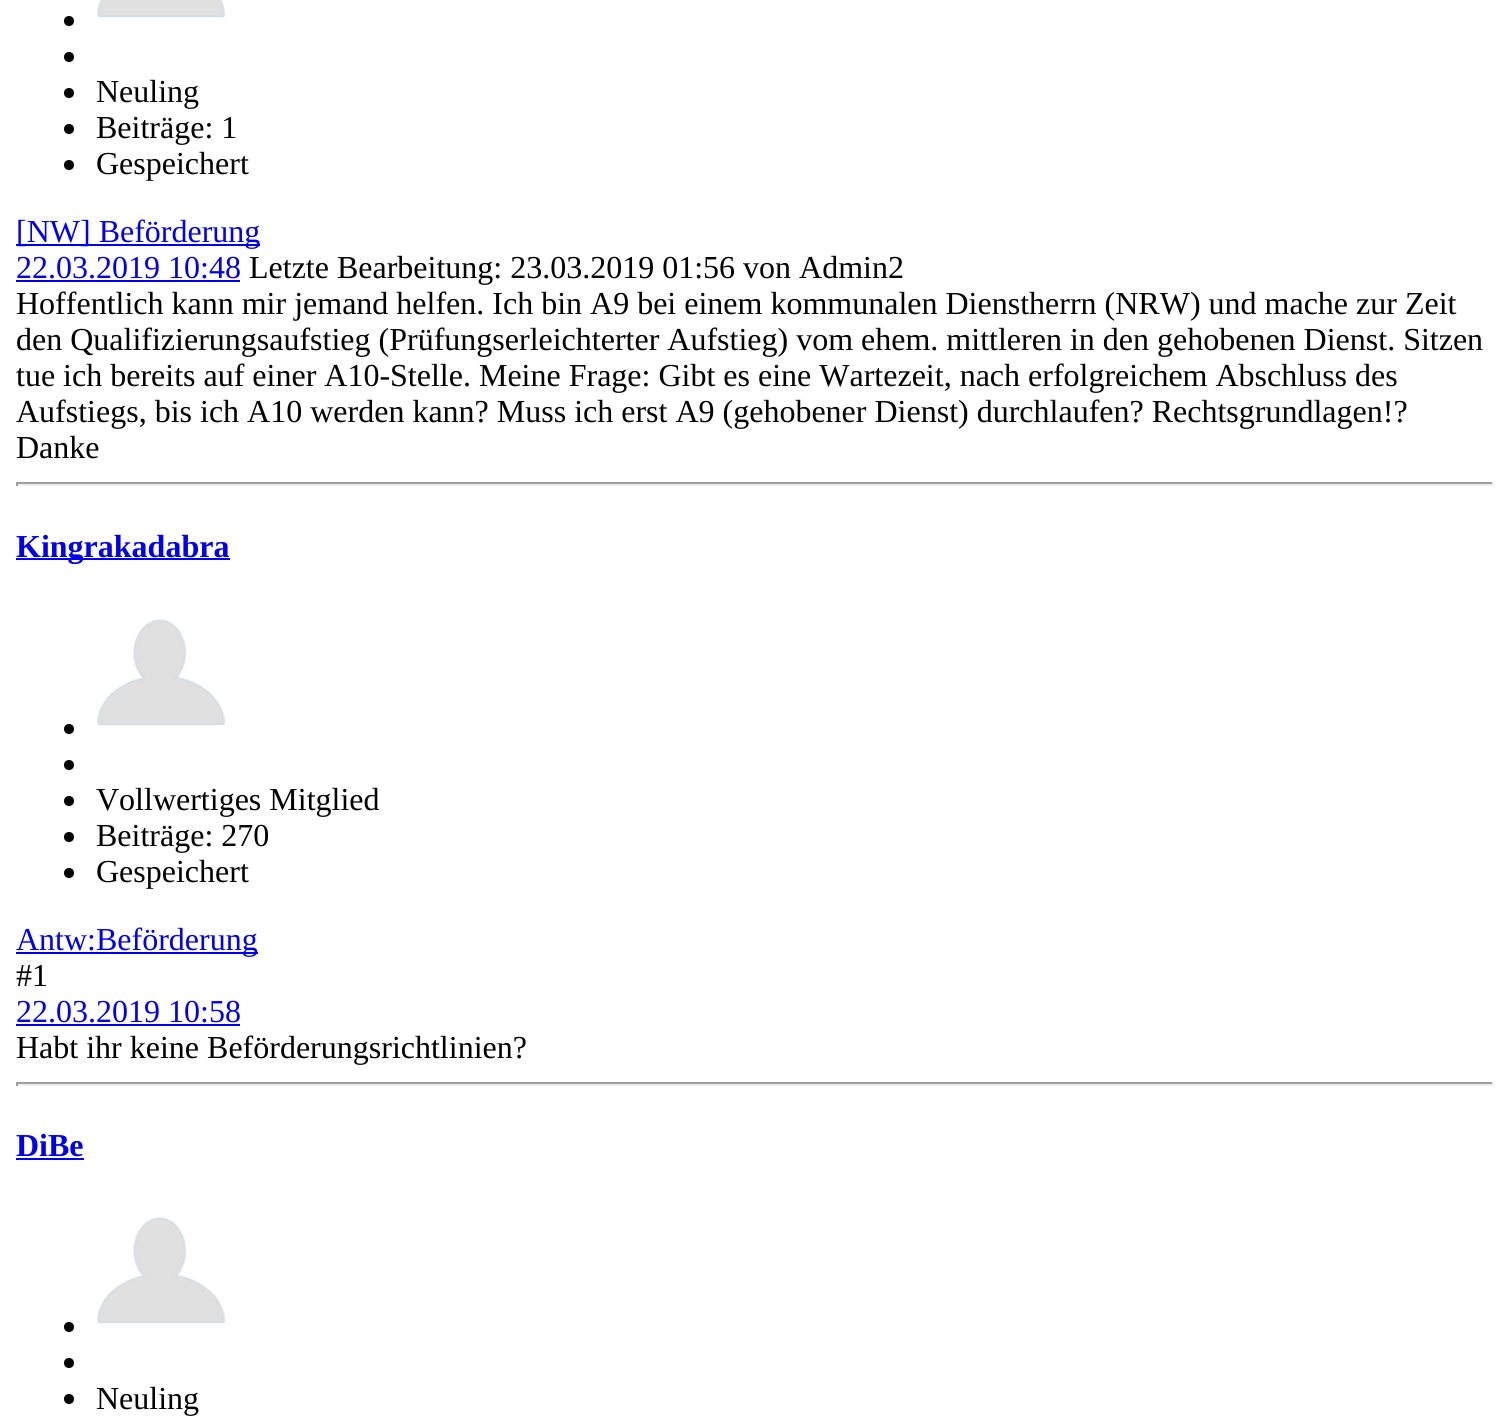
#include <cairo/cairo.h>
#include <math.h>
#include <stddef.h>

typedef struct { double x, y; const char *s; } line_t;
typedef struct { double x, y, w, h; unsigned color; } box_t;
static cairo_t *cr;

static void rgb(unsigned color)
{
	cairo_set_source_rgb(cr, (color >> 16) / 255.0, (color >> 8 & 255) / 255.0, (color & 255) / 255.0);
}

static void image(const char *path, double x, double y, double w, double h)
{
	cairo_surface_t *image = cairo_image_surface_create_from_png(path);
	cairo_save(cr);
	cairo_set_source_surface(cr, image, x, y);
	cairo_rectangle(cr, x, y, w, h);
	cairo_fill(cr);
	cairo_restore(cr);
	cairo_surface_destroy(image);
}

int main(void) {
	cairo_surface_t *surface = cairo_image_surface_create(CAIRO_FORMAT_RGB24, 1509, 1424);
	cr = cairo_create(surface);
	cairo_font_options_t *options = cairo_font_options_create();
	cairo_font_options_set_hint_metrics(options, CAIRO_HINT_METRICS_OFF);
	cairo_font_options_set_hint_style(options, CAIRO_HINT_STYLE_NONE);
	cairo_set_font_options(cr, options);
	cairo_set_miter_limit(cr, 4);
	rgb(0xffffff);
	cairo_paint(cr);
	image("img/1.png", 97, 0, 128, 18);
	rgb(0x000000);
	cairo_arc(cr, 69, 21, 5, 0, 2 * M_PI);
	cairo_fill(cr);
	cairo_arc(cr, 69, 57, 5, 0, 2 * M_PI);
	cairo_fill(cr);
	cairo_arc(cr, 69, 93, 5, 0, 2 * M_PI);
	cairo_fill(cr);
	cairo_arc(cr, 69, 129, 5, 0, 2 * M_PI);
	cairo_fill(cr);
	cairo_arc(cr, 69, 165, 5, 0, 2 * M_PI);
	cairo_fill(cr);
	{
		static const box_t items[] = {
			{16, 244, 244, 2, 0x0000ee},
			{16, 280, 224, 2, 0x0000ee},
			{16, 482, 1478, 2, 0x9f9f9f},
			{1492, 482, 2, 4, 0xeeeeee},
			{16, 484, 1478, 2, 0xeeeeee},
			{16, 482, 2, 4, 0x9f9f9f},
			{16, 558, 214, 2, 0x0000ee},
		};
		for (size_t i = 0; i < sizeof items / sizeof *items; i++) {
			rgb(items[i].color);
			cairo_rectangle(cr, items[i].x, items[i].y, items[i].w, items[i].h);
			cairo_fill(cr);
		}
	}
	image("img/2.png", 97, 619, 128, 107);
	rgb(0x000000);
	cairo_arc(cr, 69, 729, 5, 0, 2 * M_PI);
	cairo_fill(cr);
	cairo_arc(cr, 69, 765, 5, 0, 2 * M_PI);
	cairo_fill(cr);
	cairo_arc(cr, 69, 801, 5, 0, 2 * M_PI);
	cairo_fill(cr);
	cairo_arc(cr, 69, 837, 5, 0, 2 * M_PI);
	cairo_fill(cr);
	cairo_arc(cr, 69, 873, 5, 0, 2 * M_PI);
	cairo_fill(cr);
	{
		static const box_t items[] = {
			{16, 952, 242, 2, 0x0000ee},
			{16, 1024, 224, 2, 0x0000ee},
			{16, 1082, 1478, 2, 0x9f9f9f},
			{1492, 1082, 2, 4, 0xeeeeee},
			{16, 1084, 1478, 2, 0xeeeeee},
			{16, 1082, 2, 4, 0x9f9f9f},
			{16, 1158, 68, 2, 0x0000ee},
		};
		for (size_t i = 0; i < sizeof items / sizeof *items; i++) {
			rgb(items[i].color);
			cairo_rectangle(cr, items[i].x, items[i].y, items[i].w, items[i].h);
			cairo_fill(cr);
		}
	}
	image("img/2.png", 97, 1217, 128, 107);
	rgb(0x000000);
	cairo_arc(cr, 69, 1327, 5, 0, 2 * M_PI);
	cairo_fill(cr);
	cairo_arc(cr, 69, 1363, 5, 0, 2 * M_PI);
	cairo_fill(cr);
	cairo_arc(cr, 69, 1399, 5, 0, 2 * M_PI);
	cairo_fill(cr);
	cairo_select_font_face(cr, "Liberation Serif", CAIRO_FONT_SLANT_NORMAL, CAIRO_FONT_WEIGHT_NORMAL);
	cairo_set_font_size(cr, 32);
	{
		static const line_t items[] = {
			{96, 102, "Neuling"},
			{96, 138, "Beiträge: 1"},
			{96, 174, "Gespeichert"},
		};
		for (size_t i = 0; i < sizeof items / sizeof *items; i++) {
			cairo_move_to(cr, items[i].x, items[i].y);
			cairo_show_text(cr, items[i].s);
		}
	}
	rgb(0x0000ee);
	cairo_move_to(cr, 16, 242);
	cairo_show_text(cr, "[NW] Beförderung");
	cairo_move_to(cr, 16, 278);
	cairo_show_text(cr, "22.03.2019 10:48");
	rgb(0x000000);
	{
		static const line_t items[] = {
			{249, 278, "Letzte Bearbeitung: 23.03.2019 01:56 von Admin2"},
			{16, 314, "Hoffentlich kann mir jemand helfen. Ich bin A9 bei einem kommunalen Dienstherrn (NRW) und mache zur Zeit"},
			{16, 350, "den Qualifizierungsaufstieg (Prüfungserleichterter Aufstieg) vom ehem. mittleren in den gehobenen Dienst. Sitzen"},
			{16, 386, "tue ich bereits auf einer A10-Stelle. Meine Frage: Gibt es eine Wartezeit, nach erfolgreichem Abschluss des"},
			{16, 422, "Aufstiegs, bis ich A10 werden kann? Muss ich erst A9 (gehobener Dienst) durchlaufen? Rechtsgrundlagen!?"},
			{16, 458, "Danke"},
		};
		for (size_t i = 0; i < sizeof items / sizeof *items; i++) {
			cairo_move_to(cr, items[i].x, items[i].y);
			cairo_show_text(cr, items[i].s);
		}
	}
	cairo_select_font_face(cr, "Liberation Serif", CAIRO_FONT_SLANT_NORMAL, CAIRO_FONT_WEIGHT_BOLD);
	rgb(0x0000ee);
	cairo_move_to(cr, 16, 557);
	cairo_show_text(cr, "Kingrakadabra");
	cairo_select_font_face(cr, "Liberation Serif", CAIRO_FONT_SLANT_NORMAL, CAIRO_FONT_WEIGHT_NORMAL);
	rgb(0x000000);
	{
		static const line_t items[] = {
			{96, 810, "Vollwertiges Mitglied"},
			{96, 846, "Beiträge: 270"},
			{96, 882, "Gespeichert"},
		};
		for (size_t i = 0; i < sizeof items / sizeof *items; i++) {
			cairo_move_to(cr, items[i].x, items[i].y);
			cairo_show_text(cr, items[i].s);
		}
	}
	rgb(0x0000ee);
	cairo_move_to(cr, 16, 950);
	cairo_show_text(cr, "Antw:Beförderung");
	rgb(0x000000);
	cairo_move_to(cr, 16, 986);
	cairo_show_text(cr, "#1");
	rgb(0x0000ee);
	cairo_move_to(cr, 16, 1022);
	cairo_show_text(cr, "22.03.2019 10:58");
	rgb(0x000000);
	cairo_move_to(cr, 16, 1058);
	cairo_show_text(cr, "Habt ihr keine Beförderungsrichtlinien?");
	cairo_select_font_face(cr, "Liberation Serif", CAIRO_FONT_SLANT_NORMAL, CAIRO_FONT_WEIGHT_BOLD);
	rgb(0x0000ee);
	cairo_move_to(cr, 16, 1156);
	cairo_show_text(cr, "DiBe");
	cairo_select_font_face(cr, "Liberation Serif", CAIRO_FONT_SLANT_NORMAL, CAIRO_FONT_WEIGHT_NORMAL);
	rgb(0x000000);
	cairo_move_to(cr, 96, 1409);
	cairo_show_text(cr, "Neuling");
	cairo_surface_write_to_png(surface, "page.png");
	cairo_font_options_destroy(options);
	cairo_destroy(cr);
	cairo_surface_destroy(surface);
	return 0;
}
